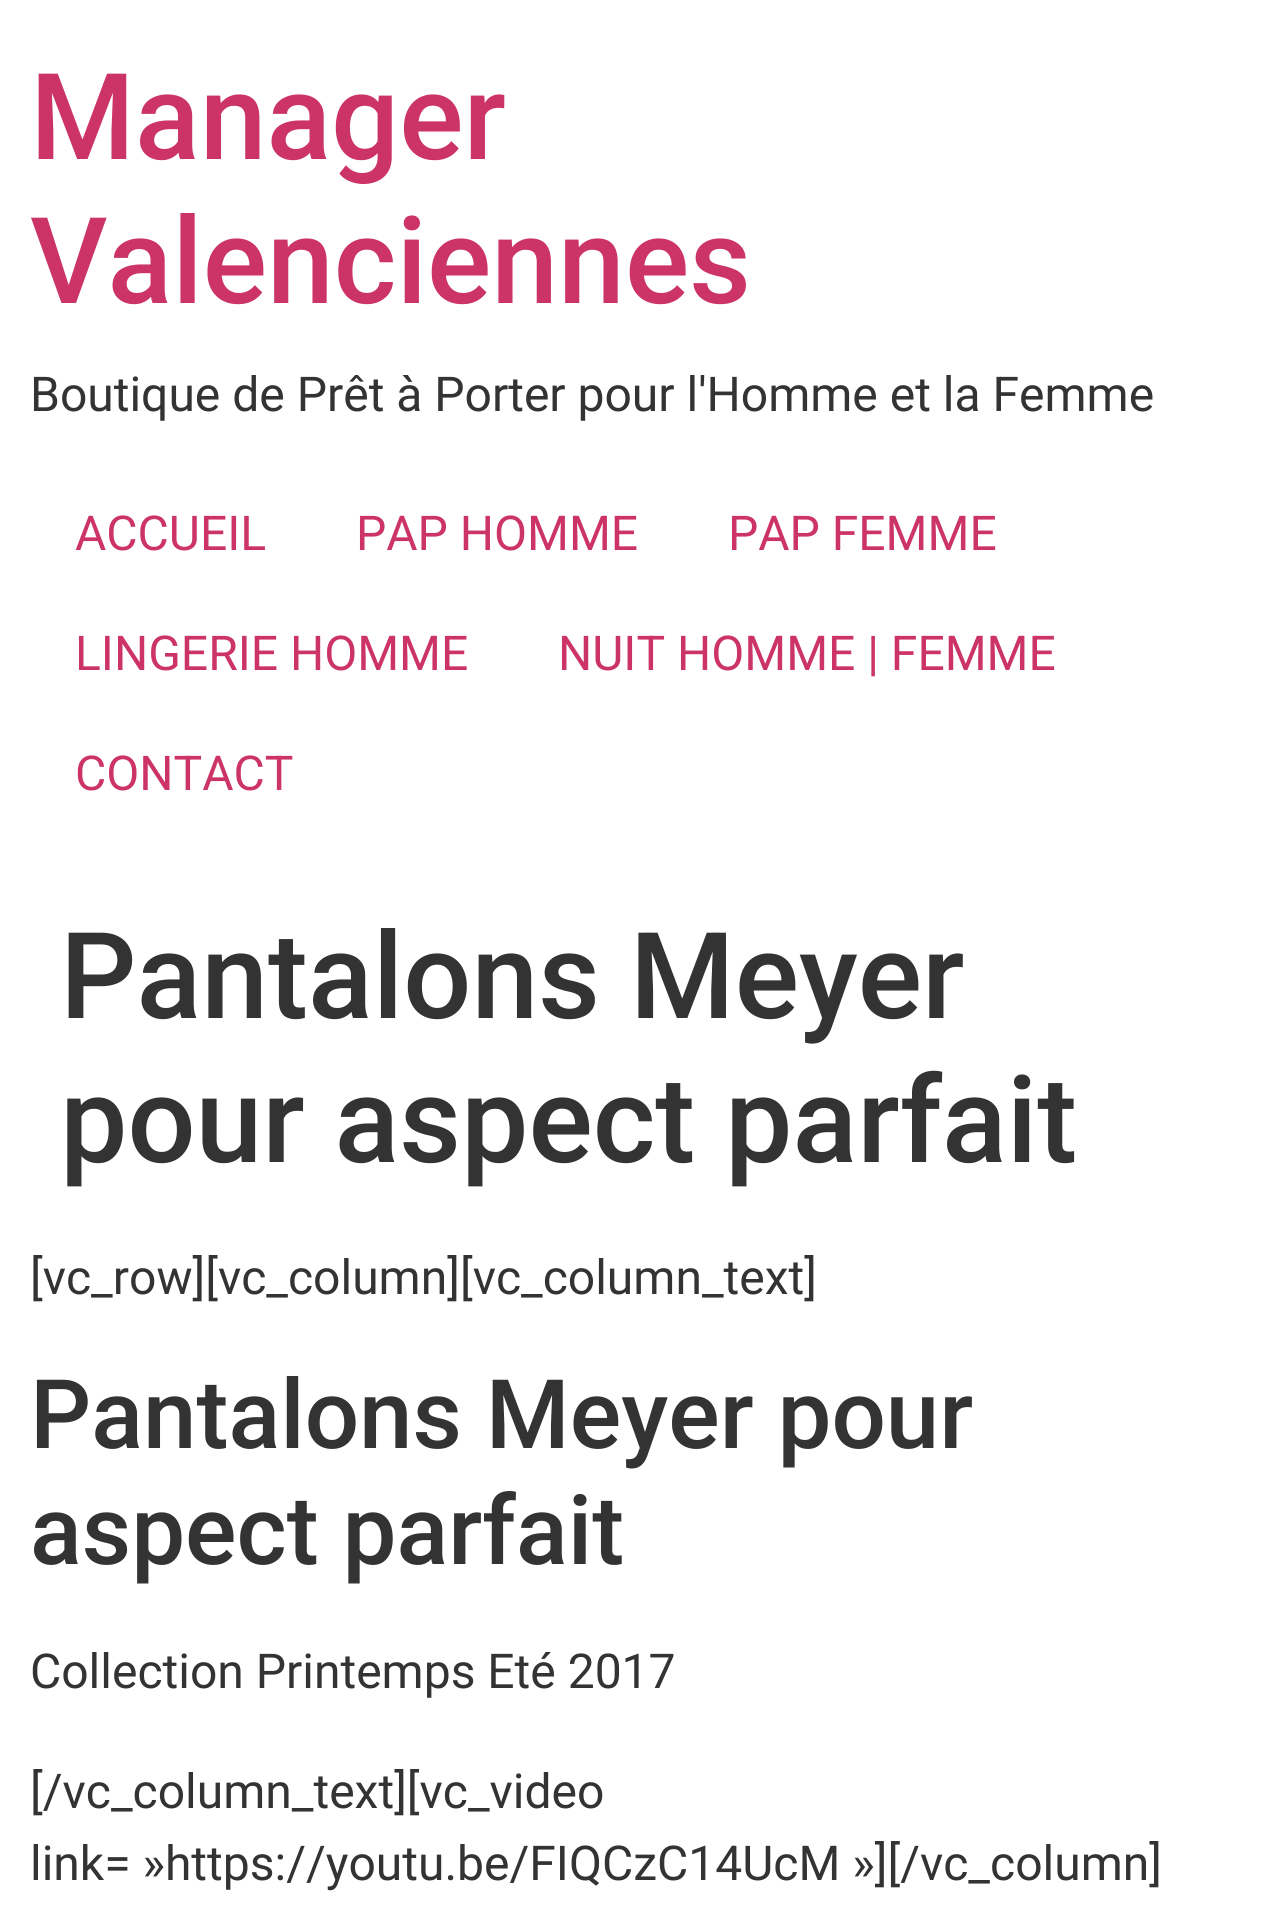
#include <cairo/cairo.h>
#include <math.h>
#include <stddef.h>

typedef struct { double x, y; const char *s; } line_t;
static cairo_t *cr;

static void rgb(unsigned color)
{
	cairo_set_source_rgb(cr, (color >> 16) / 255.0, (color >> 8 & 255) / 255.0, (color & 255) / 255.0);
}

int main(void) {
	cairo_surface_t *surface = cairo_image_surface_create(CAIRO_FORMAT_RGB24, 1276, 1926);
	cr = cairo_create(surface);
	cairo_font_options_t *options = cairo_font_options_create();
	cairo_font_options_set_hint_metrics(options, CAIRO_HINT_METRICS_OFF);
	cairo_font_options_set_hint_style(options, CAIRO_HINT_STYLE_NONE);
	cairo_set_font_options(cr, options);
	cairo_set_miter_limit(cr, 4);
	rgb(0xffffff);
	cairo_paint(cr);
	cairo_select_font_face(cr, "Roboto Medium", CAIRO_FONT_SLANT_NORMAL, CAIRO_FONT_WEIGHT_NORMAL);
	cairo_set_font_size(cr, 120);
	rgb(0xcc3366);
	cairo_move_to(cr, 30, 159);
	cairo_show_text(cr, "Manager");
	cairo_move_to(cr, 30, 303);
	cairo_show_text(cr, "Valenciennes");
	cairo_select_font_face(cr, "Roboto", CAIRO_FONT_SLANT_NORMAL, CAIRO_FONT_WEIGHT_NORMAL);
	cairo_set_font_size(cr, 48);
	rgb(0x333333);
	cairo_move_to(cr, 30, 411);
	cairo_show_text(cr, "Boutique de Prêt à Porter pour l'Homme et la Femme");
	rgb(0xcc3366);
	{
		static const line_t items[] = {
			{75, 550, "ACCUEIL"},
			{356, 550, "PAP HOMME"},
			{728, 550, "PAP FEMME"},
			{75, 670, "LINGERIE HOMME"},
			{558, 670, "NUIT HOMME | FEMME"},
			{75, 790, "CONTACT"},
		};
		for (size_t i = 0; i < sizeof items / sizeof *items; i++) {
			cairo_move_to(cr, items[i].x, items[i].y);
			cairo_show_text(cr, items[i].s);
		}
	}
	cairo_select_font_face(cr, "Roboto Medium", CAIRO_FONT_SLANT_NORMAL, CAIRO_FONT_WEIGHT_NORMAL);
	cairo_set_font_size(cr, 120);
	rgb(0x333333);
	cairo_move_to(cr, 60, 1018);
	cairo_show_text(cr, "Pantalons Meyer");
	cairo_move_to(cr, 60, 1162);
	cairo_show_text(cr, "pour aspect parfait");
	cairo_select_font_face(cr, "Roboto", CAIRO_FONT_SLANT_NORMAL, CAIRO_FONT_WEIGHT_NORMAL);
	cairo_set_font_size(cr, 48);
	cairo_move_to(cr, 30, 1294);
	cairo_show_text(cr, "[vc_row][vc_column][vc_column_text]");
	cairo_select_font_face(cr, "Roboto Medium", CAIRO_FONT_SLANT_NORMAL, CAIRO_FONT_WEIGHT_NORMAL);
	cairo_set_font_size(cr, 96);
	cairo_move_to(cr, 30, 1448);
	cairo_show_text(cr, "Pantalons Meyer pour");
	cairo_move_to(cr, 30, 1564);
	cairo_show_text(cr, "aspect parfait");
	cairo_select_font_face(cr, "Roboto", CAIRO_FONT_SLANT_NORMAL, CAIRO_FONT_WEIGHT_NORMAL);
	cairo_set_font_size(cr, 48);
	{
		static const line_t items[] = {
			{30, 1688, "Collection Printemps Eté 2017"},
			{30, 1808, "[/vc_column_text][vc_video"},
			{30, 1880, "link= »https://youtu.be/FIQCzC14UcM »][/vc_column]"},
		};
		for (size_t i = 0; i < sizeof items / sizeof *items; i++) {
			cairo_move_to(cr, items[i].x, items[i].y);
			cairo_show_text(cr, items[i].s);
		}
	}
	cairo_surface_write_to_png(surface, "page.png");
	cairo_font_options_destroy(options);
	cairo_destroy(cr);
	cairo_surface_destroy(surface);
	return 0;
}
